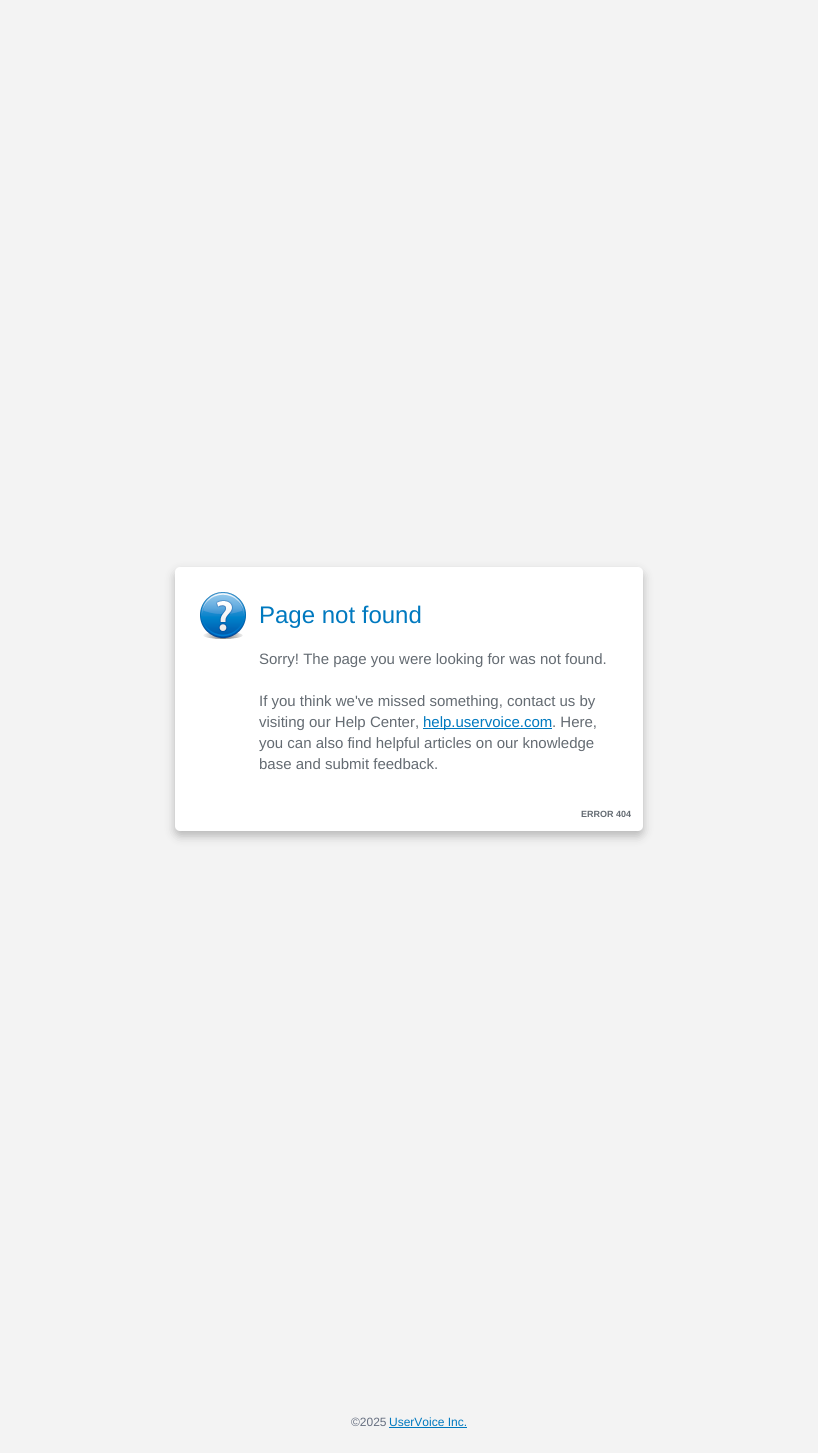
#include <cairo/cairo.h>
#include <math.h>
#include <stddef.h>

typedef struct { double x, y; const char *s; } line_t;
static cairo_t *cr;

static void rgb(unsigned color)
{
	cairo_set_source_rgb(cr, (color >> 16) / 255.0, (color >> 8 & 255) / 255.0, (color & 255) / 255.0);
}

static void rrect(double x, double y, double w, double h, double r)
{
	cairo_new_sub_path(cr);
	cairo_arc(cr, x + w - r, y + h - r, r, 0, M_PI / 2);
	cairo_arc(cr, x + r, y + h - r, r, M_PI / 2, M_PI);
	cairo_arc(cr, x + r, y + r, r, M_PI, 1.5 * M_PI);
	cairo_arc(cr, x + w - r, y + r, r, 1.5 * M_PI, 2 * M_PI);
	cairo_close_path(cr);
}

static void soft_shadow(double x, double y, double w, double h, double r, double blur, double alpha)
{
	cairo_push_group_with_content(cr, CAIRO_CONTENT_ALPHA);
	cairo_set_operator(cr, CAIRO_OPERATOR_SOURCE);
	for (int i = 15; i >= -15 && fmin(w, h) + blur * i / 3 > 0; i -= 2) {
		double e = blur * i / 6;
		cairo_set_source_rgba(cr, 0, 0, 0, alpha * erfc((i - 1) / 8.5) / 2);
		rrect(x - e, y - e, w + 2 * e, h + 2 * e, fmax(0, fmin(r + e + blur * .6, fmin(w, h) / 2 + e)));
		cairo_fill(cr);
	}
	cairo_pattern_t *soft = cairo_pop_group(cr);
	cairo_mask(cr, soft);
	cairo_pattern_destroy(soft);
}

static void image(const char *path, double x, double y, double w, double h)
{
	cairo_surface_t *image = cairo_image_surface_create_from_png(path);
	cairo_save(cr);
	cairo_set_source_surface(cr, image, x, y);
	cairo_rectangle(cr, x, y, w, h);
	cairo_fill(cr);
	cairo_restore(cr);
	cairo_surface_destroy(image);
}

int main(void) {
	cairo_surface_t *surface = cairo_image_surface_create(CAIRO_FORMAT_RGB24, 818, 1453);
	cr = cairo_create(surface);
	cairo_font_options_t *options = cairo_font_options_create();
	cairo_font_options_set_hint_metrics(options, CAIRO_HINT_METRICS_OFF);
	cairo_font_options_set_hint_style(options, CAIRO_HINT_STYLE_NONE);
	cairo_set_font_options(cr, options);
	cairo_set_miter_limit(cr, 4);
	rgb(0xf3f3f3);
	cairo_paint(cr);
	rgb(0x000000);
	soft_shadow(175, 572, 468, 264, 5, 5, 0.25);
	rgb(0xffffff);
	rrect(175, 567, 468, 264, 5);
	cairo_fill(cr);
	image("img/1.png", 200, 592, 46, 47);
	rgb(0x0079bf);
	cairo_rectangle(cr, 423, 728, 129, 1);
	cairo_fill(cr);
	cairo_rectangle(cr, 389, 1427, 78, 1);
	cairo_fill(cr);
	cairo_select_font_face(cr, "Liberation Sans", CAIRO_FONT_SLANT_NORMAL, CAIRO_FONT_WEIGHT_NORMAL);
	cairo_set_font_size(cr, 24);
	cairo_move_to(cr, 259, 623);
	cairo_show_text(cr, "Page not found");
	cairo_set_font_size(cr, 15);
	rgb(0x646b72);
	{
		static const line_t items[] = {
			{259, 664, "Sorry! The page you were looking for was not found."},
			{259, 706, "If you think we've missed something, contact us by"},
			{259, 727, "visiting our Help Center,"},
		};
		for (size_t i = 0; i < sizeof items / sizeof *items; i++) {
			cairo_move_to(cr, items[i].x, items[i].y);
			cairo_show_text(cr, items[i].s);
		}
	}
	rgb(0x0079bf);
	cairo_move_to(cr, 423, 727);
	cairo_show_text(cr, "help.uservoice.com");
	rgb(0x646b72);
	{
		static const line_t items[] = {
			{552, 727, ". Here,"},
			{259, 748, "you can also find helpful articles on our knowledge"},
			{259, 769, "base and submit feedback."},
		};
		for (size_t i = 0; i < sizeof items / sizeof *items; i++) {
			cairo_move_to(cr, items[i].x, items[i].y);
			cairo_show_text(cr, items[i].s);
		}
	}
	cairo_select_font_face(cr, "Liberation Sans", CAIRO_FONT_SLANT_NORMAL, CAIRO_FONT_WEIGHT_BOLD);
	cairo_set_font_size(cr, 9);
	cairo_move_to(cr, 581, 817);
	cairo_show_text(cr, "ERROR 404");
	cairo_select_font_face(cr, "Liberation Sans", CAIRO_FONT_SLANT_NORMAL, CAIRO_FONT_WEIGHT_NORMAL);
	cairo_set_font_size(cr, 12);
	rgb(0x666f80);
	cairo_move_to(cr, 351, 1426);
	cairo_show_text(cr, "©2025");
	rgb(0x0079bf);
	cairo_move_to(cr, 389, 1426);
	cairo_show_text(cr, "UserVoice Inc.");
	cairo_surface_write_to_png(surface, "page.png");
	cairo_font_options_destroy(options);
	cairo_destroy(cr);
	cairo_surface_destroy(surface);
	return 0;
}
